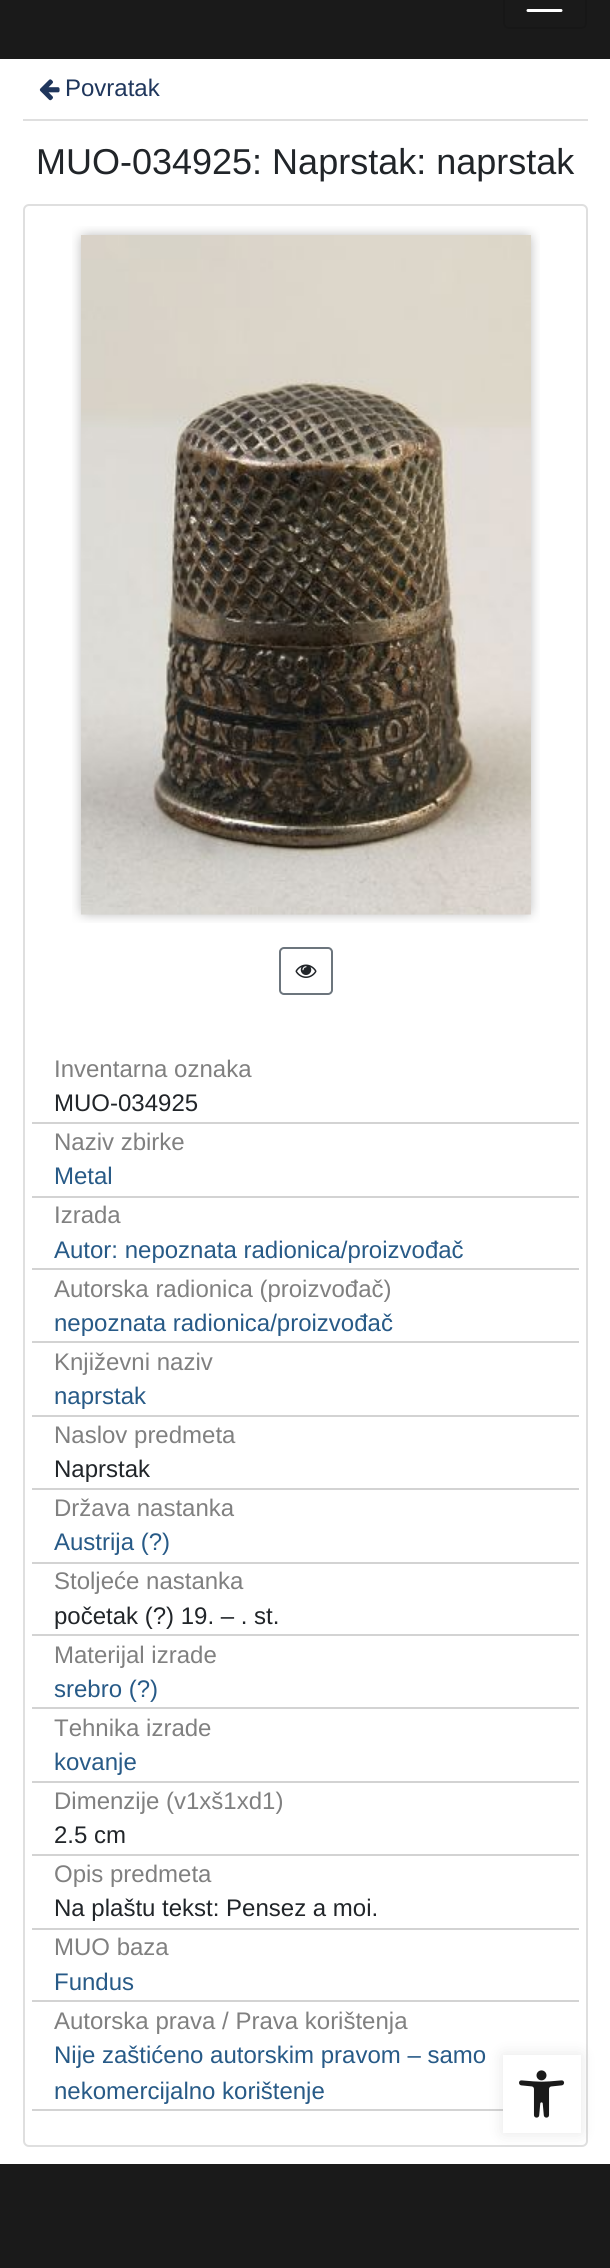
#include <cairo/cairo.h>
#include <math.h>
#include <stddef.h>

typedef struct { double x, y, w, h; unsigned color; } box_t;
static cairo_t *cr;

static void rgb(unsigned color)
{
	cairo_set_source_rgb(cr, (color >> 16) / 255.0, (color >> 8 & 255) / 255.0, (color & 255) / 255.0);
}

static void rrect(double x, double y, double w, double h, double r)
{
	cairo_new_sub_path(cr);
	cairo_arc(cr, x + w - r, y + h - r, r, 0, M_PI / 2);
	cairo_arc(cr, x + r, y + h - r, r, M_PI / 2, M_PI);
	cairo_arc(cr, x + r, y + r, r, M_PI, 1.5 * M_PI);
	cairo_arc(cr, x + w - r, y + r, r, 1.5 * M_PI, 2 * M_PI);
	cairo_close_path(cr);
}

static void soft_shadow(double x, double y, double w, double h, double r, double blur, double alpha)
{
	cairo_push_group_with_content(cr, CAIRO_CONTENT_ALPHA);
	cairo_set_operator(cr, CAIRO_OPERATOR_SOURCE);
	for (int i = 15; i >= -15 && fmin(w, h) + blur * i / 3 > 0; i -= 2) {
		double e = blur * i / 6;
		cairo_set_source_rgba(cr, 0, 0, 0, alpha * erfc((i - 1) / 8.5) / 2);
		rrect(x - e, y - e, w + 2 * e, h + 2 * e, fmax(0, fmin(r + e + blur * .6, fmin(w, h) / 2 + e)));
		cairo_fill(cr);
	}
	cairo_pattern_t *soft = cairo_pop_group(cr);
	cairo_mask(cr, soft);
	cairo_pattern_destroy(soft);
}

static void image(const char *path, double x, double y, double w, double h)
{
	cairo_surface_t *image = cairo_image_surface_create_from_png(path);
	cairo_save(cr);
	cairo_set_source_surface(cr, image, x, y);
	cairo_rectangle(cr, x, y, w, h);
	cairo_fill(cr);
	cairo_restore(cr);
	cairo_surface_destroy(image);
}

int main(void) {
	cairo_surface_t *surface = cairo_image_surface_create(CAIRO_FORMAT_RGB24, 610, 2268);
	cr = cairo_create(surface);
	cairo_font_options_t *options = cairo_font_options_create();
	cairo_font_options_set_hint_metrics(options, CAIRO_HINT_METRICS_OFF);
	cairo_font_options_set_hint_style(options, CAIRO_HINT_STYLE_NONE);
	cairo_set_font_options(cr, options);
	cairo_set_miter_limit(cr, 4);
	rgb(0xffffff);
	cairo_paint(cr);
	rgb(0x1a1a1a);
	cairo_rectangle(cr, 0, 0, 610, 59);
	cairo_fill(cr);
	rrect(504, -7, 82, 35, 5);
	rgb(0x171717);
	cairo_stroke(cr);
	cairo_new_path(cr);
	cairo_move_to(cr, 528, -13.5);
	cairo_line_to(cr, 561, -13.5);
	cairo_move_to(cr, 528, -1.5);
	cairo_line_to(cr, 561, -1.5);
	cairo_move_to(cr, 528, 10.5);
	cairo_line_to(cr, 561, 10.5);
	rgb(0xffffff);
	cairo_set_line_width(cr, 3);
	cairo_set_line_cap(cr, CAIRO_LINE_CAP_ROUND);
	cairo_stroke(cr);
	rgb(0xdfdfdf);
	cairo_rectangle(cr, 23, 119, 565, 2);
	cairo_fill(cr);
	image("img/1.png", 39, 79, 21, 22);
	rrect(24, 205, 563, 1941, 5);
	cairo_set_line_width(cr, 2);
	cairo_set_line_cap(cr, CAIRO_LINE_CAP_BUTT);
	cairo_stroke(cr);
	image("img/2.png", 72, 226, 468, 697);
	rrect(280, 948, 52, 46, 4);
	rgb(0x6c757d);
	cairo_stroke(cr);
	image("img/3.png", 295, 964, 22, 14);
	{
		static const box_t items[] = {
			{32, 1122, 547, 2, 0xd3d3d3},
			{32, 1196, 547, 2, 0xd3d3d3},
			{32, 1268, 547, 2, 0xd3d3d3},
			{32, 1341, 547, 2, 0xd3d3d3},
			{32, 1415, 547, 2, 0xd3d3d3},
			{32, 1488, 547, 2, 0xd3d3d3},
			{32, 1562, 547, 2, 0xd3d3d3},
			{32, 1634, 547, 2, 0xd3d3d3},
			{32, 1707, 547, 2, 0xd3d3d3},
			{32, 1781, 547, 2, 0xd3d3d3},
			{32, 1854, 547, 2, 0xd3d3d3},
			{32, 1928, 547, 2, 0xd3d3d3},
			{32, 2000, 547, 2, 0xd3d3d3},
			{32, 2109, 471, 2, 0xd3d3d3},
		};
		for (size_t i = 0; i < sizeof items / sizeof *items; i++) {
			rgb(items[i].color);
			cairo_rectangle(cr, items[i].x, items[i].y, items[i].w, items[i].h);
			cairo_fill(cr);
		}
	}
	rgb(0x000000);
	soft_shadow(503, 2055, 78, 78, 0, 7.5, 0.1);
	rgb(0xffffff);
	cairo_rectangle(cr, 503, 2055, 78, 78);
	cairo_fill(cr);
	image("img/4.png", 519, 2070, 46, 48);
	rgb(0x1a1a1a);
	cairo_rectangle(cr, 0, 2164, 610, 104);
	cairo_fill(cr);
	cairo_select_font_face(cr, "Liberation Sans", CAIRO_FONT_SLANT_NORMAL, CAIRO_FONT_WEIGHT_NORMAL);
	cairo_set_font_size(cr, 24);
	rgb(0x1f365c);
	cairo_move_to(cr, 65, 96);
	cairo_show_text(cr, "Povratak");
	cairo_set_font_size(cr, 36);
	rgb(0x212529);
	cairo_move_to(cr, 36, 174);
	cairo_show_text(cr, "MUO-034925: Naprstak: naprstak");
	cairo_set_font_size(cr, 24);
	rgb(0x808080);
	cairo_move_to(cr, 54, 1077);
	cairo_show_text(cr, "Inventarna oznaka");
	rgb(0x212529);
	cairo_move_to(cr, 54, 1111);
	cairo_show_text(cr, "MUO-034925");
	rgb(0x808080);
	cairo_move_to(cr, 54, 1150);
	cairo_show_text(cr, "Naziv zbirke");
	rgb(0x275a87);
	cairo_move_to(cr, 54, 1184);
	cairo_show_text(cr, "Metal");
	rgb(0x808080);
	cairo_move_to(cr, 54, 1223);
	cairo_show_text(cr, "Izrada");
	rgb(0x275a87);
	cairo_move_to(cr, 54, 1258);
	cairo_show_text(cr, "Autor: nepoznata radionica/proizvođač");
	rgb(0x808080);
	cairo_move_to(cr, 54, 1297);
	cairo_show_text(cr, "Autorska radionica (proizvođač)");
	rgb(0x275a87);
	cairo_move_to(cr, 54, 1331);
	cairo_show_text(cr, "nepoznata radionica/proizvođač");
	rgb(0x808080);
	cairo_move_to(cr, 54, 1370);
	cairo_show_text(cr, "Književni naziv");
	rgb(0x275a87);
	cairo_move_to(cr, 54, 1404);
	cairo_show_text(cr, "naprstak");
	rgb(0x808080);
	cairo_move_to(cr, 54, 1443);
	cairo_show_text(cr, "Naslov predmeta");
	rgb(0x212529);
	cairo_move_to(cr, 54, 1477);
	cairo_show_text(cr, "Naprstak");
	rgb(0x808080);
	cairo_move_to(cr, 54, 1516);
	cairo_show_text(cr, "Država nastanka");
	rgb(0x275a87);
	cairo_move_to(cr, 54, 1550);
	cairo_show_text(cr, "Austrija (?)");
	rgb(0x808080);
	cairo_move_to(cr, 54, 1589);
	cairo_show_text(cr, "Stoljeće nastanka");
	rgb(0x212529);
	cairo_move_to(cr, 54, 1624);
	cairo_show_text(cr, "početak (?) 19. – . st.");
	rgb(0x808080);
	cairo_move_to(cr, 54, 1663);
	cairo_show_text(cr, "Materijal izrade");
	rgb(0x275a87);
	cairo_move_to(cr, 54, 1697);
	cairo_show_text(cr, "srebro (?)");
	rgb(0x808080);
	cairo_move_to(cr, 54, 1736);
	cairo_show_text(cr, "Tehnika izrade");
	rgb(0x275a87);
	cairo_move_to(cr, 54, 1770);
	cairo_show_text(cr, "kovanje");
	rgb(0x808080);
	cairo_move_to(cr, 54, 1809);
	cairo_show_text(cr, "Dimenzije (v1xš1xd1)");
	rgb(0x212529);
	cairo_move_to(cr, 54, 1843);
	cairo_show_text(cr, "2.5 cm");
	rgb(0x808080);
	cairo_move_to(cr, 54, 1882);
	cairo_show_text(cr, "Opis predmeta");
	rgb(0x212529);
	cairo_move_to(cr, 54, 1916);
	cairo_show_text(cr, "Na plaštu tekst: Pensez a moi.");
	rgb(0x808080);
	cairo_move_to(cr, 54, 1955);
	cairo_show_text(cr, "MUO baza");
	rgb(0x275a87);
	cairo_move_to(cr, 54, 1990);
	cairo_show_text(cr, "Fundus");
	rgb(0x808080);
	cairo_move_to(cr, 54, 2029);
	cairo_show_text(cr, "Autorska prava / Prava korištenja");
	rgb(0x275a87);
	cairo_move_to(cr, 54, 2063);
	cairo_show_text(cr, "Nije zaštićeno autorskim pravom – samo");
	cairo_move_to(cr, 54, 2099);
	cairo_show_text(cr, "nekomercijalno korištenje");
	cairo_surface_write_to_png(surface, "page.png");
	cairo_font_options_destroy(options);
	cairo_destroy(cr);
	cairo_surface_destroy(surface);
	return 0;
}
